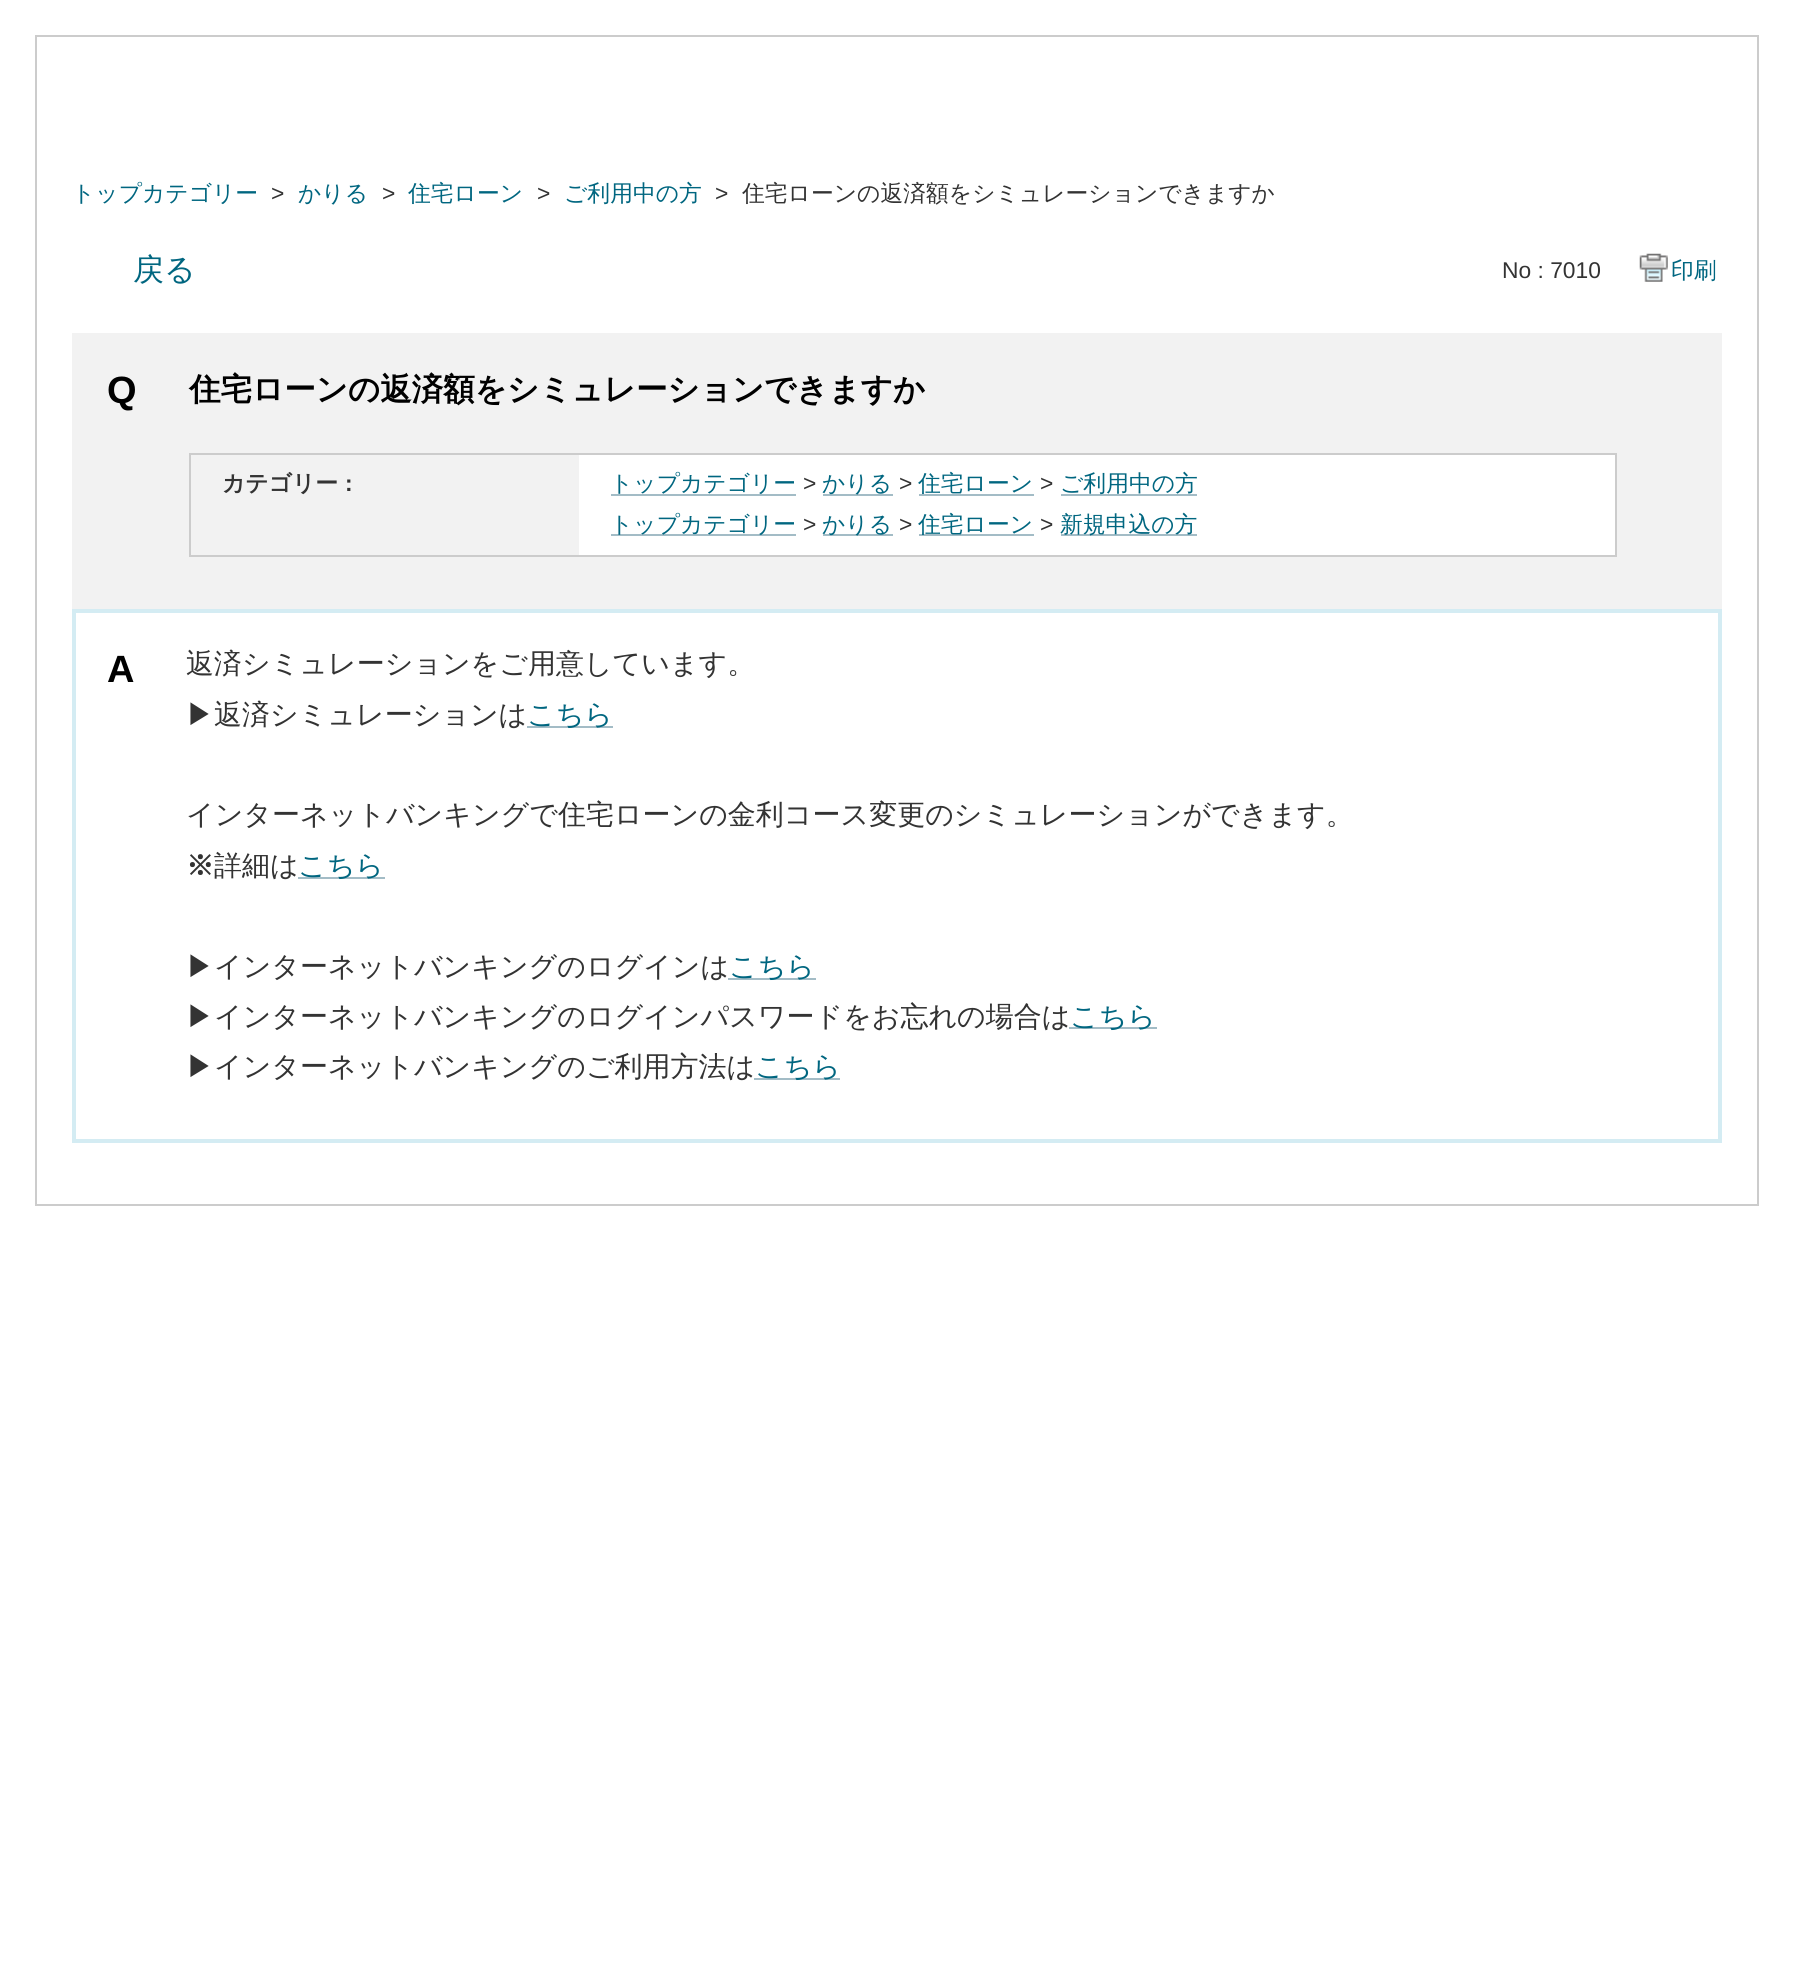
#include <cairo/cairo.h>
#include <math.h>
#include <stddef.h>

typedef struct { double x, y, w, h; unsigned color; } box_t;
static cairo_t *cr;

static void rgb(unsigned color)
{
	cairo_set_source_rgb(cr, (color >> 16) / 255.0, (color >> 8 & 255) / 255.0, (color & 255) / 255.0);
}

static void image(const char *path, double x, double y, double w, double h)
{
	cairo_surface_t *image = cairo_image_surface_create_from_png(path);
	cairo_save(cr);
	cairo_set_source_surface(cr, image, x, y);
	cairo_rectangle(cr, x, y, w, h);
	cairo_fill(cr);
	cairo_restore(cr);
	cairo_surface_destroy(image);
}

int main(void) {
	cairo_surface_t *surface = cairo_image_surface_create(CAIRO_FORMAT_RGB24, 1793, 1971);
	cr = cairo_create(surface);
	cairo_font_options_t *options = cairo_font_options_create();
	cairo_font_options_set_hint_metrics(options, CAIRO_HINT_METRICS_OFF);
	cairo_font_options_set_hint_style(options, CAIRO_HINT_STYLE_NONE);
	cairo_set_font_options(cr, options);
	cairo_set_miter_limit(cr, 4);
	rgb(0xffffff);
	cairo_paint(cr);
	cairo_rectangle(cr, 36, 36, 1722, 1169);
	rgb(0xcccccc);
	cairo_stroke(cr);
	image("img/1.png", 1639, 253, 29, 29);
	rgb(0xf2f2f2);
	cairo_rectangle(cr, 72, 333, 1650, 276);
	cairo_fill(cr);
	rgb(0xffffff);
	cairo_rectangle(cr, 579, 455, 1036, 100);
	cairo_fill(cr);
	cairo_rectangle(cr, 190, 454, 1426, 102);
	rgb(0xcccccc);
	cairo_stroke(cr);
	{
		static const box_t items[] = {
			{611, 494, 185, 2, 0xa3bcc6},
			{823, 494, 70, 2, 0xa3bcc6},
			{919, 494, 115, 2, 0xa3bcc6},
			{1061, 494, 136, 2, 0xa3bcc6},
			{611, 534, 185, 2, 0xa3bcc6},
			{823, 534, 70, 2, 0xa3bcc6},
			{919, 534, 115, 2, 0xa3bcc6},
			{1061, 534, 136, 2, 0xa3bcc6},
		};
		for (size_t i = 0; i < sizeof items / sizeof *items; i++) {
			rgb(items[i].color);
			cairo_rectangle(cr, items[i].x, items[i].y, items[i].w, items[i].h);
			cairo_fill(cr);
		}
	}
	cairo_rectangle(cr, 74, 611, 1646, 530);
	rgb(0xd4ecf3);
	cairo_set_line_width(cr, 4);
	cairo_stroke(cr);
	{
		static const box_t items[] = {
			{527, 726, 86, 2, 0xa3bcc6},
			{298, 877, 87, 2, 0xa3bcc6},
			{728, 978, 88, 2, 0xa3bcc6},
			{1069, 1027, 88, 2, 0xa3bcc6},
			{754, 1078, 86, 2, 0xa3bcc6},
		};
		for (size_t i = 0; i < sizeof items / sizeof *items; i++) {
			rgb(items[i].color);
			cairo_rectangle(cr, items[i].x, items[i].y, items[i].w, items[i].h);
			cairo_fill(cr);
		}
	}
	cairo_select_font_face(cr, "WenQuanYi Zen Hei Medium", CAIRO_FONT_SLANT_NORMAL, CAIRO_FONT_WEIGHT_NORMAL);
	cairo_set_font_size(cr, 22.8);
	rgb(0x006680);
	cairo_move_to(cr, 72, 201);
	cairo_show_text(cr, "トップカテゴリー");
	cairo_select_font_face(cr, "Liberation Sans", CAIRO_FONT_SLANT_NORMAL, CAIRO_FONT_WEIGHT_NORMAL);
	rgb(0x333333);
	cairo_move_to(cr, 271, 201);
	cairo_show_text(cr, ">");
	cairo_select_font_face(cr, "WenQuanYi Zen Hei Medium", CAIRO_FONT_SLANT_NORMAL, CAIRO_FONT_WEIGHT_NORMAL);
	rgb(0x006680);
	cairo_move_to(cr, 298, 201);
	cairo_show_text(cr, "かりる");
	cairo_select_font_face(cr, "Liberation Sans", CAIRO_FONT_SLANT_NORMAL, CAIRO_FONT_WEIGHT_NORMAL);
	rgb(0x333333);
	cairo_move_to(cr, 382, 201);
	cairo_show_text(cr, ">");
	cairo_select_font_face(cr, "WenQuanYi Zen Hei Medium", CAIRO_FONT_SLANT_NORMAL, CAIRO_FONT_WEIGHT_NORMAL);
	rgb(0x006680);
	cairo_move_to(cr, 408, 201);
	cairo_show_text(cr, "住宅ローン");
	cairo_select_font_face(cr, "Liberation Sans", CAIRO_FONT_SLANT_NORMAL, CAIRO_FONT_WEIGHT_NORMAL);
	rgb(0x333333);
	cairo_move_to(cr, 537, 201);
	cairo_show_text(cr, ">");
	cairo_select_font_face(cr, "WenQuanYi Zen Hei Medium", CAIRO_FONT_SLANT_NORMAL, CAIRO_FONT_WEIGHT_NORMAL);
	rgb(0x006680);
	cairo_move_to(cr, 564, 201);
	cairo_show_text(cr, "ご利用中の方");
	cairo_select_font_face(cr, "Liberation Sans", CAIRO_FONT_SLANT_NORMAL, CAIRO_FONT_WEIGHT_NORMAL);
	rgb(0x333333);
	cairo_move_to(cr, 715, 201);
	cairo_show_text(cr, ">");
	cairo_select_font_face(cr, "WenQuanYi Zen Hei Medium", CAIRO_FONT_SLANT_NORMAL, CAIRO_FONT_WEIGHT_NORMAL);
	cairo_move_to(cr, 742, 201);
	cairo_show_text(cr, "住宅ローンの返済額をシミュレーションできますか");
	cairo_set_font_size(cr, 31);
	rgb(0x006680);
	cairo_move_to(cr, 133, 280);
	cairo_show_text(cr, "戻る");
	cairo_select_font_face(cr, "Liberation Sans", CAIRO_FONT_SLANT_NORMAL, CAIRO_FONT_WEIGHT_NORMAL);
	cairo_set_font_size(cr, 22.8);
	rgb(0x333333);
	cairo_move_to(cr, 1502, 278);
	cairo_show_text(cr, "No : 7010");
	cairo_select_font_face(cr, "WenQuanYi Zen Hei Medium", CAIRO_FONT_SLANT_NORMAL, CAIRO_FONT_WEIGHT_NORMAL);
	rgb(0x006680);
	cairo_move_to(cr, 1671, 278);
	cairo_show_text(cr, "印刷");
	cairo_select_font_face(cr, "Liberation Sans", CAIRO_FONT_SLANT_NORMAL, CAIRO_FONT_WEIGHT_BOLD);
	cairo_set_font_size(cr, 38);
	rgb(0x000000);
	cairo_move_to(cr, 107, 403);
	cairo_show_text(cr, "Q");
	cairo_select_font_face(cr, "WenQuanYi Zen Hei", CAIRO_FONT_SLANT_NORMAL, CAIRO_FONT_WEIGHT_BOLD);
	cairo_set_font_size(cr, 31.5);
	cairo_move_to(cr, 189, 400);
	cairo_show_text(cr, "住宅ローンの返済額をシミュレーションできますか");
	cairo_set_font_size(cr, 22.8);
	rgb(0x333333);
	cairo_move_to(cr, 222, 491);
	cairo_show_text(cr, "カテゴリー");
	cairo_select_font_face(cr, "Liberation Sans", CAIRO_FONT_SLANT_NORMAL, CAIRO_FONT_WEIGHT_BOLD);
	cairo_move_to(cr, 345, 491);
	cairo_show_text(cr, ":");
	cairo_select_font_face(cr, "WenQuanYi Zen Hei Medium", CAIRO_FONT_SLANT_NORMAL, CAIRO_FONT_WEIGHT_NORMAL);
	rgb(0x006680);
	cairo_move_to(cr, 610, 491);
	cairo_show_text(cr, "トップカテゴリー");
	cairo_select_font_face(cr, "Liberation Sans", CAIRO_FONT_SLANT_NORMAL, CAIRO_FONT_WEIGHT_NORMAL);
	rgb(0x333333);
	cairo_move_to(cr, 803, 491);
	cairo_show_text(cr, ">");
	cairo_select_font_face(cr, "WenQuanYi Zen Hei Medium", CAIRO_FONT_SLANT_NORMAL, CAIRO_FONT_WEIGHT_NORMAL);
	rgb(0x006680);
	cairo_move_to(cr, 822, 491);
	cairo_show_text(cr, "かりる");
	cairo_select_font_face(cr, "Liberation Sans", CAIRO_FONT_SLANT_NORMAL, CAIRO_FONT_WEIGHT_NORMAL);
	rgb(0x333333);
	cairo_move_to(cr, 899, 491);
	cairo_show_text(cr, ">");
	cairo_select_font_face(cr, "WenQuanYi Zen Hei Medium", CAIRO_FONT_SLANT_NORMAL, CAIRO_FONT_WEIGHT_NORMAL);
	rgb(0x006680);
	cairo_move_to(cr, 918, 491);
	cairo_show_text(cr, "住宅ローン");
	cairo_select_font_face(cr, "Liberation Sans", CAIRO_FONT_SLANT_NORMAL, CAIRO_FONT_WEIGHT_NORMAL);
	rgb(0x333333);
	cairo_move_to(cr, 1040, 491);
	cairo_show_text(cr, ">");
	cairo_select_font_face(cr, "WenQuanYi Zen Hei Medium", CAIRO_FONT_SLANT_NORMAL, CAIRO_FONT_WEIGHT_NORMAL);
	rgb(0x006680);
	cairo_move_to(cr, 1060, 491);
	cairo_show_text(cr, "ご利用中の方");
	cairo_move_to(cr, 610, 532);
	cairo_show_text(cr, "トップカテゴリー");
	cairo_select_font_face(cr, "Liberation Sans", CAIRO_FONT_SLANT_NORMAL, CAIRO_FONT_WEIGHT_NORMAL);
	rgb(0x333333);
	cairo_move_to(cr, 803, 532);
	cairo_show_text(cr, ">");
	cairo_select_font_face(cr, "WenQuanYi Zen Hei Medium", CAIRO_FONT_SLANT_NORMAL, CAIRO_FONT_WEIGHT_NORMAL);
	rgb(0x006680);
	cairo_move_to(cr, 822, 532);
	cairo_show_text(cr, "かりる");
	cairo_select_font_face(cr, "Liberation Sans", CAIRO_FONT_SLANT_NORMAL, CAIRO_FONT_WEIGHT_NORMAL);
	rgb(0x333333);
	cairo_move_to(cr, 899, 532);
	cairo_show_text(cr, ">");
	cairo_select_font_face(cr, "WenQuanYi Zen Hei Medium", CAIRO_FONT_SLANT_NORMAL, CAIRO_FONT_WEIGHT_NORMAL);
	rgb(0x006680);
	cairo_move_to(cr, 918, 532);
	cairo_show_text(cr, "住宅ローン");
	cairo_select_font_face(cr, "Liberation Sans", CAIRO_FONT_SLANT_NORMAL, CAIRO_FONT_WEIGHT_NORMAL);
	rgb(0x333333);
	cairo_move_to(cr, 1040, 532);
	cairo_show_text(cr, ">");
	cairo_select_font_face(cr, "WenQuanYi Zen Hei Medium", CAIRO_FONT_SLANT_NORMAL, CAIRO_FONT_WEIGHT_NORMAL);
	rgb(0x006680);
	cairo_move_to(cr, 1060, 532);
	cairo_show_text(cr, "新規申込の方");
	cairo_select_font_face(cr, "Liberation Sans", CAIRO_FONT_SLANT_NORMAL, CAIRO_FONT_WEIGHT_BOLD);
	cairo_set_font_size(cr, 38);
	rgb(0x000000);
	cairo_move_to(cr, 107, 682);
	cairo_show_text(cr, "A");
	cairo_select_font_face(cr, "WenQuanYi Zen Hei Medium", CAIRO_FONT_SLANT_NORMAL, CAIRO_FONT_WEIGHT_NORMAL);
	cairo_set_font_size(cr, 28);
	rgb(0x333333);
	cairo_move_to(cr, 186, 673);
	cairo_show_text(cr, "返済シミュレーションをご用意しています。");
	cairo_move_to(cr, 186, 724);
	cairo_show_text(cr, "▶返済シミュレーションは");
	rgb(0x006680);
	cairo_move_to(cr, 527, 724);
	cairo_show_text(cr, "こちら");
	rgb(0x333333);
	cairo_move_to(cr, 186, 824);
	cairo_show_text(cr, "インターネットバンキングで住宅ローンの金利コース変更のシミュレーションができます。");
	cairo_select_font_face(cr, "WenQuanYi Zen Hei", CAIRO_FONT_SLANT_NORMAL, CAIRO_FONT_WEIGHT_BOLD);
	cairo_move_to(cr, 186, 875);
	cairo_show_text(cr, "※");
	cairo_select_font_face(cr, "WenQuanYi Zen Hei Medium", CAIRO_FONT_SLANT_NORMAL, CAIRO_FONT_WEIGHT_NORMAL);
	cairo_move_to(cr, 214, 875);
	cairo_show_text(cr, "詳細は");
	rgb(0x006680);
	cairo_move_to(cr, 298, 875);
	cairo_show_text(cr, "こちら");
	rgb(0x333333);
	cairo_move_to(cr, 186, 976);
	cairo_show_text(cr, "▶インターネットバンキングのログインは");
	rgb(0x006680);
	cairo_move_to(cr, 729, 976);
	cairo_show_text(cr, "こちら");
	rgb(0x333333);
	cairo_move_to(cr, 186, 1026);
	cairo_show_text(cr, "▶インターネットバンキングのログインパスワードをお忘れの場合は");
	rgb(0x006680);
	cairo_move_to(cr, 1070, 1026);
	cairo_show_text(cr, "こちら");
	rgb(0x333333);
	cairo_move_to(cr, 186, 1076);
	cairo_show_text(cr, "▶インターネットバンキングのご利用方法は");
	rgb(0x006680);
	cairo_move_to(cr, 755, 1076);
	cairo_show_text(cr, "こちら");
	cairo_surface_write_to_png(surface, "page.png");
	cairo_font_options_destroy(options);
	cairo_destroy(cr);
	cairo_surface_destroy(surface);
	return 0;
}
